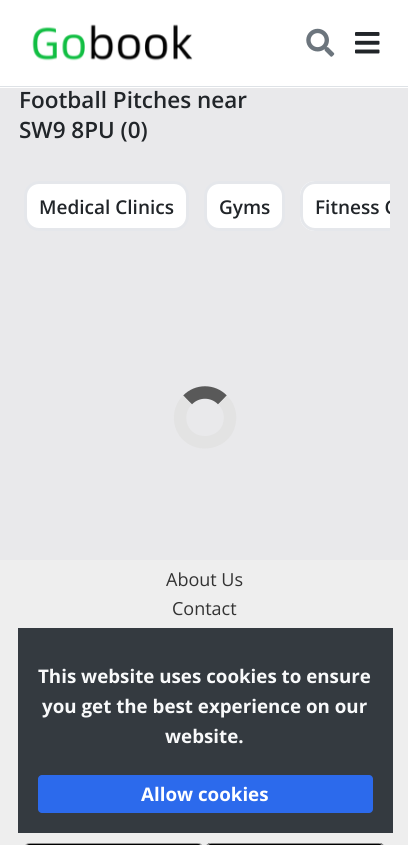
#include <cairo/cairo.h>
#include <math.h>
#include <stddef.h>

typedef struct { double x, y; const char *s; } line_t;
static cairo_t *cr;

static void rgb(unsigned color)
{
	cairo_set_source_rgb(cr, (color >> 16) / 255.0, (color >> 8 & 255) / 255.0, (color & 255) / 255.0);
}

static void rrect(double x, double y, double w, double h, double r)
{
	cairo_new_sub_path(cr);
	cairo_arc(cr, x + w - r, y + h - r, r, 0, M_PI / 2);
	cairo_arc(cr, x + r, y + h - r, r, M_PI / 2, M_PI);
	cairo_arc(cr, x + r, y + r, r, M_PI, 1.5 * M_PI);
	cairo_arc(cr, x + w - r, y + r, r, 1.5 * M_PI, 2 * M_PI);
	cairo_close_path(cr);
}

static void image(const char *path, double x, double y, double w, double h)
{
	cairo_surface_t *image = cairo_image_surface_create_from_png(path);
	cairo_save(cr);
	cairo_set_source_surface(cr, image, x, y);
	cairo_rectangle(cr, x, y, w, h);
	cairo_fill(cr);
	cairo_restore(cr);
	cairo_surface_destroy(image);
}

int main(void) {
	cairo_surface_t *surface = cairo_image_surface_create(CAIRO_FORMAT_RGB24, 408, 845);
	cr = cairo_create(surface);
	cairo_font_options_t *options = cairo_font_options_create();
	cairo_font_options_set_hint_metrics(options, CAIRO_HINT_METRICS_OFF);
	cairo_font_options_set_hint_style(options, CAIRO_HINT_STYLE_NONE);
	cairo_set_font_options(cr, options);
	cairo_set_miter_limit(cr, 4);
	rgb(0xe9e9eb);
	cairo_paint(cr);
	rgb(0xffffff);
	cairo_rectangle(cr, 0, 0, 408, 88);
	cairo_fill(cr);
	rgb(0xdee2e6);
	cairo_rectangle(cr, 0, 86, 408, 1);
	cairo_fill(cr);
	image("img/1.png", 32, 24, 161, 37);
	image("img/2.png", 306, 28, 29, 29);
	image("img/3.png", 355, 32, 25, 22);
	rgb(0xffffff);
	rrect(25.5, 182.5, 162, 47, 13.5);
	cairo_fill_preserve(cr);
	rgb(0xe5e7eb);
	cairo_set_line_width(cr, 3);
	cairo_stroke(cr);
	rgb(0xffffff);
	rrect(205.5, 182.5, 78, 47, 13.5);
	cairo_fill_preserve(cr);
	rgb(0xe5e7eb);
	cairo_stroke(cr);
	rgb(0xffffff);
	cairo_new_path(cr);
	cairo_move_to(cr, 315, 181);
	cairo_line_to(cr, 390, 181);
	cairo_line_to(cr, 390, 231);
	cairo_line_to(cr, 315, 231);
	cairo_curve_to(cr, 306.5, 231, 300, 224.5, 300, 216);
	cairo_line_to(cr, 300, 196);
	cairo_curve_to(cr, 300, 187.5, 306.5, 181, 315, 181);
	cairo_close_path(cr);
	cairo_fill(cr);
	cairo_save(cr);
	cairo_rectangle(cr, 19, 181, 371, 50);
	cairo_clip(cr);
	rrect(301.5, 182.5, 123, 47, 13.5);
	rgb(0xe5e7eb);
	cairo_stroke(cr);
	cairo_restore(cr);
	cairo_new_path(cr);
	cairo_move_to(cr, 187.5, 400);
	cairo_curve_to(cr, 197, 390, 213, 390, 222.5, 400);
	rgb(0x595959);
	cairo_set_line_width(cr, 12.5);
	cairo_stroke(cr);
	cairo_new_path(cr);
	cairo_move_to(cr, 222.5, 400);
	cairo_curve_to(cr, 227.5, 404.5, 230, 411, 230, 417.5);
	cairo_curve_to(cr, 230, 447.5, 186.5, 451.5, 180.5, 422.5);
	cairo_curve_to(cr, 179, 414.5, 181.5, 405.5, 187.5, 400);
	rgb(0xe3e3e3);
	cairo_stroke(cr);
	rgb(0xeeeeee);
	cairo_rectangle(cr, 0, 560, 408, 285);
	cairo_fill(cr);
	image("img/4.png", 25, 843, 177, 2);
	image("img/5.png", 206, 843, 178, 2);
	rgb(0x343a40);
	cairo_rectangle(cr, 18, 628, 375, 205);
	cairo_fill(cr);
	rgb(0x2c6aec);
	rrect(38, 775, 335, 38, 4);
	cairo_fill(cr);
	cairo_select_font_face(cr, "Open Sans SemiBold", CAIRO_FONT_SLANT_NORMAL, CAIRO_FONT_WEIGHT_NORMAL);
	cairo_set_font_size(cr, 22.5);
	rgb(0x212529);
	cairo_move_to(cr, 19, 108);
	cairo_show_text(cr, "Football Pitches near");
	cairo_move_to(cr, 19, 138);
	cairo_show_text(cr, "SW9 8PU (0)");
	cairo_set_font_size(cr, 19);
	cairo_move_to(cr, 39, 214);
	cairo_show_text(cr, "Medical Clinics");
	cairo_move_to(cr, 219, 214);
	cairo_show_text(cr, "Gyms");
	cairo_save(cr);
	cairo_rectangle(cr, 19, 181, 371, 50);
	cairo_clip(cr);
	cairo_move_to(cr, 315, 214);
	cairo_show_text(cr, "Fitness C");
	cairo_restore(cr);
	cairo_select_font_face(cr, "Open Sans", CAIRO_FONT_SLANT_NORMAL, CAIRO_FONT_WEIGHT_NORMAL);
	cairo_set_font_size(cr, 18);
	rgb(0x333333);
	cairo_move_to(cr, 166, 586);
	cairo_show_text(cr, "About Us");
	cairo_move_to(cr, 172, 615);
	cairo_show_text(cr, "Contact");
	cairo_select_font_face(cr, "Open Sans", CAIRO_FONT_SLANT_NORMAL, CAIRO_FONT_WEIGHT_BOLD);
	cairo_set_font_size(cr, 18.75);
	rgb(0xf8f9fa);
	{
		static const line_t items[] = {
			{38, 683, "This website uses cookies to ensure"},
			{42, 713, "you get the best experience on our"},
			{165, 743, "website."},
		};
		for (size_t i = 0; i < sizeof items / sizeof *items; i++) {
			cairo_move_to(cr, items[i].x, items[i].y);
			cairo_show_text(cr, items[i].s);
		}
	}
	rgb(0xffffff);
	cairo_move_to(cr, 141, 801);
	cairo_show_text(cr, "Allow cookies");
	cairo_surface_write_to_png(surface, "page.png");
	cairo_font_options_destroy(options);
	cairo_destroy(cr);
	cairo_surface_destroy(surface);
	return 0;
}
